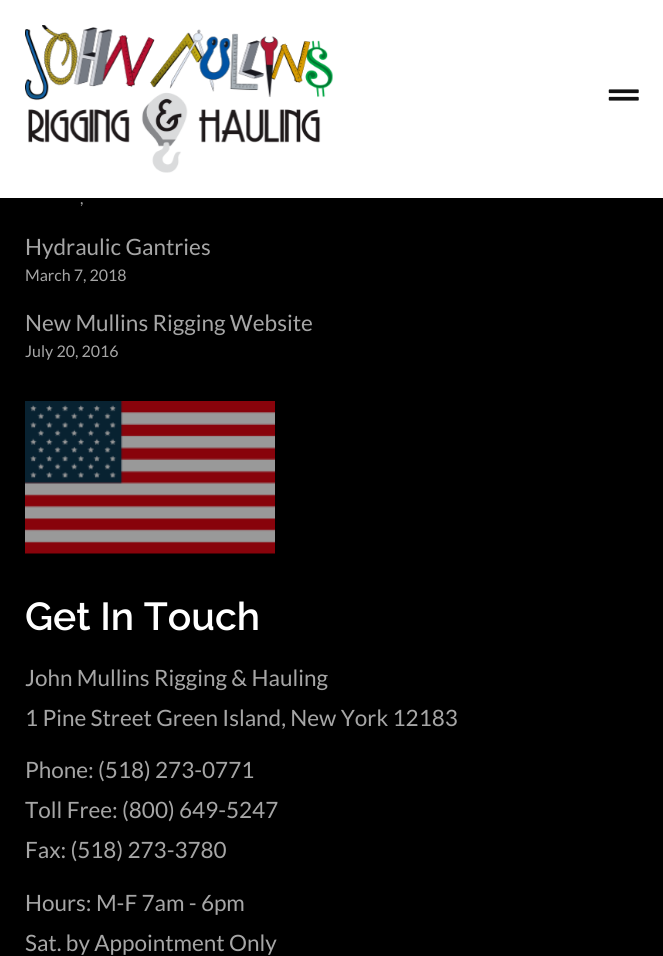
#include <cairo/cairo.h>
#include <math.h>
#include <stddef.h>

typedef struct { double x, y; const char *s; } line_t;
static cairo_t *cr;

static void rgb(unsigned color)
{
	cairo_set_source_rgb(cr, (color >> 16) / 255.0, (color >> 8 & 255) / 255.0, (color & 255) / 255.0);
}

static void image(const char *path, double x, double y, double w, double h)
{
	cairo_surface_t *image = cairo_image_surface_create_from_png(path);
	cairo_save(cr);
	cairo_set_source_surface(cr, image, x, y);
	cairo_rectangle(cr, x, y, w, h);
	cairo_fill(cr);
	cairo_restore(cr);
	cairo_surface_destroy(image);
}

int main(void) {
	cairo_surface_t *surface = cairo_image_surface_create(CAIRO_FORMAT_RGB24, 663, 956);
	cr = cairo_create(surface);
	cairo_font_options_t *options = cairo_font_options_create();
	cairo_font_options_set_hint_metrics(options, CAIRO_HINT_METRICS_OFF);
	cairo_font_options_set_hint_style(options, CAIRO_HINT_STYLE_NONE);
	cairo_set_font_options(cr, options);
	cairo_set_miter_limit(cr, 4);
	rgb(0x000000);
	cairo_paint(cr);
	rgb(0xffffff);
	cairo_rectangle(cr, 0, 0, 663, 198);
	cairo_fill(cr);
	image("img/1.png", 25, 25, 308, 148);
	image("img/2.png", 608, 89, 31, 12);
	image("img/3.png", 25, 401, 250, 153);
	cairo_select_font_face(cr, "Lato", CAIRO_FONT_SLANT_NORMAL, CAIRO_FONT_WEIGHT_NORMAL);
	cairo_set_font_size(cr, 16);
	rgb(0xa6a6a6);
	cairo_move_to(cr, 80, 204);
	cairo_show_text(cr, ",");
	cairo_set_font_size(cr, 22.5);
	cairo_move_to(cr, 25, 255);
	cairo_show_text(cr, "Hydraulic Gantries");
	cairo_set_font_size(cr, 16);
	cairo_move_to(cr, 25, 281);
	cairo_show_text(cr, "March 7, 2018");
	cairo_set_font_size(cr, 22.5);
	cairo_move_to(cr, 25, 331);
	cairo_show_text(cr, "New Mullins Rigging Website");
	cairo_set_font_size(cr, 16);
	cairo_move_to(cr, 25, 357);
	cairo_show_text(cr, "July 20, 2016");
	cairo_select_font_face(cr, "Raleway SemiBold", CAIRO_FONT_SLANT_NORMAL, CAIRO_FONT_WEIGHT_NORMAL);
	cairo_set_font_size(cr, 39);
	rgb(0xffffff);
	cairo_move_to(cr, 25, 630);
	cairo_show_text(cr, "Get In Touch");
	cairo_select_font_face(cr, "Lato", CAIRO_FONT_SLANT_NORMAL, CAIRO_FONT_WEIGHT_NORMAL);
	cairo_set_font_size(cr, 22.5);
	rgb(0xa6a6a6);
	{
		static const line_t items[] = {
			{25, 686, "John Mullins Rigging & Hauling"},
			{25, 726, "1 Pine Street Green Island, New York 12183"},
			{25, 778, "Phone: (518) 273-0771"},
			{25, 818, "Toll Free: (800) 649-5247"},
			{25, 858, "Fax: (518) 273-3780"},
			{25, 911, "Hours: M-F 7am - 6pm"},
			{25, 951, "Sat. by Appointment Only"},
		};
		for (size_t i = 0; i < sizeof items / sizeof *items; i++) {
			cairo_move_to(cr, items[i].x, items[i].y);
			cairo_show_text(cr, items[i].s);
		}
	}
	cairo_surface_write_to_png(surface, "page.png");
	cairo_font_options_destroy(options);
	cairo_destroy(cr);
	cairo_surface_destroy(surface);
	return 0;
}
